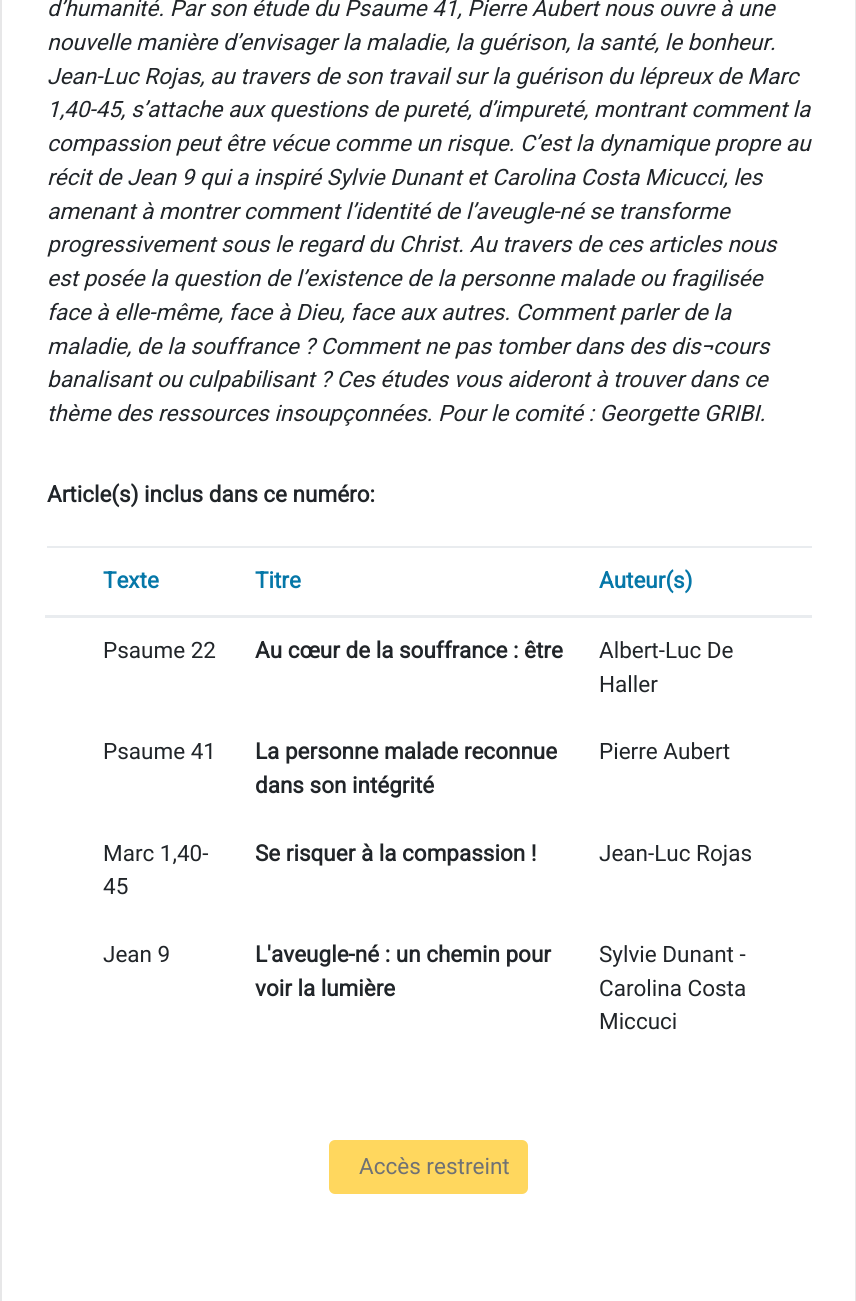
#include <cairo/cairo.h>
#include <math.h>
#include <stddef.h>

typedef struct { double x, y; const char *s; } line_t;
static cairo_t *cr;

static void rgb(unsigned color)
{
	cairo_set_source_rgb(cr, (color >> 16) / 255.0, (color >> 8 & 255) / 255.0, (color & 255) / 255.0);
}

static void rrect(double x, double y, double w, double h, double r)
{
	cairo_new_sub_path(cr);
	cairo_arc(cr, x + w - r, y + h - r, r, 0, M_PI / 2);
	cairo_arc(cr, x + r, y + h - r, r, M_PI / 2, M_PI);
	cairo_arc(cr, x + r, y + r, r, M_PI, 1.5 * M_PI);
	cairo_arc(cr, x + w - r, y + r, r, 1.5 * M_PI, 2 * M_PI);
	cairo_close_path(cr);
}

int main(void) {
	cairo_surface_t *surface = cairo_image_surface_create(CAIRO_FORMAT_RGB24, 856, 1301);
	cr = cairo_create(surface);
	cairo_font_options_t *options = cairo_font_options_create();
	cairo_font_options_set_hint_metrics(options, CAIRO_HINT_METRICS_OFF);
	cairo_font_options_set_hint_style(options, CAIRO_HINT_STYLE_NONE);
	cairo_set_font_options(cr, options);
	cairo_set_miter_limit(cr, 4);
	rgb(0xffffff);
	cairo_paint(cr);
	cairo_rectangle(cr, 1, -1, 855, 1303);
	rgb(0xe7e7e8);
	cairo_stroke(cr);
	rgb(0xe9ecef);
	cairo_rectangle(cr, 47, 546, 765, 2);
	cairo_fill(cr);
	cairo_rectangle(cr, 45, 615, 767, 3);
	cairo_fill(cr);
	rgb(0xffd75e);
	rrect(330, 1141, 197, 52, 5);
	cairo_fill_preserve(cr);
	cairo_stroke(cr);
	cairo_select_font_face(cr, "Roboto", CAIRO_FONT_SLANT_ITALIC, CAIRO_FONT_WEIGHT_NORMAL);
	cairo_set_font_size(cr, 22.5);
	rgb(0x212529);
	{
		static const line_t items[] = {
			{47, 16, "d’humanité. Par son étude du Psaume 41, Pierre Aubert nous ouvre à une"},
			{47, 50, "nouvelle manière d’envisager la maladie, la guérison, la santé, le bonheur."},
			{47, 84, "Jean-Luc Rojas, au travers de son travail sur la guérison du lépreux de Marc"},
			{47, 117, "1,40-45, s’attache aux questions de pureté, d’impureté, montrant comment la"},
			{47, 151, "compassion peut être vécue comme un risque. C’est la dynamique propre au"},
			{47, 185, "récit de Jean 9 qui a inspiré Sylvie Dunant et Carolina Costa Micucci, les"},
			{47, 219, "amenant à montrer comment l’identité de l’aveugle-né se transforme"},
			{47, 252, "progressivement sous le regard du Christ. Au travers de ces articles nous"},
			{47, 286, "est posée la question de l’existence de la personne malade ou fragilisée"},
			{47, 320, "face à elle-même, face à Dieu, face aux autres. Comment parler de la"},
			{47, 354, "maladie, de la souffrance ? Comment ne pas tomber dans des dis¬cours"},
			{47, 387, "banalisant ou culpabilisant ? Ces études vous aideront à trouver dans ce"},
			{47, 421, "thème des ressources insoupçonnées. Pour le comité : Georgette GRIBI."},
		};
		for (size_t i = 0; i < sizeof items / sizeof *items; i++) {
			cairo_move_to(cr, items[i].x, items[i].y);
			cairo_show_text(cr, items[i].s);
		}
	}
	cairo_select_font_face(cr, "Roboto", CAIRO_FONT_SLANT_NORMAL, CAIRO_FONT_WEIGHT_BOLD);
	cairo_move_to(cr, 47, 502);
	cairo_show_text(cr, "Article(s) inclus dans ce numéro:");
	rgb(0x0577a8);
	{
		static const line_t items[] = {
			{103, 588, "Texte"},
			{255, 588, "Titre"},
			{599, 588, "Auteur(s)"},
		};
		for (size_t i = 0; i < sizeof items / sizeof *items; i++) {
			cairo_move_to(cr, items[i].x, items[i].y);
			cairo_show_text(cr, items[i].s);
		}
	}
	cairo_select_font_face(cr, "Roboto", CAIRO_FONT_SLANT_NORMAL, CAIRO_FONT_WEIGHT_NORMAL);
	rgb(0x212529);
	cairo_move_to(cr, 103, 658);
	cairo_show_text(cr, "Psaume 22");
	cairo_select_font_face(cr, "Roboto", CAIRO_FONT_SLANT_NORMAL, CAIRO_FONT_WEIGHT_BOLD);
	cairo_move_to(cr, 255, 658);
	cairo_show_text(cr, "Au cœur de la souffrance : être");
	cairo_select_font_face(cr, "Roboto", CAIRO_FONT_SLANT_NORMAL, CAIRO_FONT_WEIGHT_NORMAL);
	{
		static const line_t items[] = {
			{599, 658, "Albert-Luc De"},
			{599, 692, "Haller"},
			{103, 759, "Psaume 41"},
		};
		for (size_t i = 0; i < sizeof items / sizeof *items; i++) {
			cairo_move_to(cr, items[i].x, items[i].y);
			cairo_show_text(cr, items[i].s);
		}
	}
	cairo_select_font_face(cr, "Roboto", CAIRO_FONT_SLANT_NORMAL, CAIRO_FONT_WEIGHT_BOLD);
	cairo_move_to(cr, 255, 759);
	cairo_show_text(cr, "La personne malade reconnue");
	cairo_move_to(cr, 255, 793);
	cairo_show_text(cr, "dans son intégrité");
	cairo_select_font_face(cr, "Roboto", CAIRO_FONT_SLANT_NORMAL, CAIRO_FONT_WEIGHT_NORMAL);
	{
		static const line_t items[] = {
			{599, 759, "Pierre Aubert"},
			{103, 861, "Marc 1,40-"},
			{103, 894, "45"},
		};
		for (size_t i = 0; i < sizeof items / sizeof *items; i++) {
			cairo_move_to(cr, items[i].x, items[i].y);
			cairo_show_text(cr, items[i].s);
		}
	}
	cairo_select_font_face(cr, "Roboto", CAIRO_FONT_SLANT_NORMAL, CAIRO_FONT_WEIGHT_BOLD);
	cairo_move_to(cr, 255, 861);
	cairo_show_text(cr, "Se risquer à la compassion !");
	cairo_select_font_face(cr, "Roboto", CAIRO_FONT_SLANT_NORMAL, CAIRO_FONT_WEIGHT_NORMAL);
	cairo_move_to(cr, 599, 861);
	cairo_show_text(cr, "Jean-Luc Rojas");
	cairo_move_to(cr, 103, 962);
	cairo_show_text(cr, "Jean 9");
	cairo_select_font_face(cr, "Roboto", CAIRO_FONT_SLANT_NORMAL, CAIRO_FONT_WEIGHT_BOLD);
	cairo_move_to(cr, 255, 962);
	cairo_show_text(cr, "L'aveugle-né : un chemin pour");
	cairo_move_to(cr, 255, 996);
	cairo_show_text(cr, "voir la lumière");
	cairo_select_font_face(cr, "Roboto", CAIRO_FONT_SLANT_NORMAL, CAIRO_FONT_WEIGHT_NORMAL);
	{
		static const line_t items[] = {
			{599, 962, "Sylvie Dunant -"},
			{599, 996, "Carolina Costa"},
			{599, 1029, "Miccuci"},
		};
		for (size_t i = 0; i < sizeof items / sizeof *items; i++) {
			cairo_move_to(cr, items[i].x, items[i].y);
			cairo_show_text(cr, items[i].s);
		}
	}
	rgb(0x6f7174);
	cairo_move_to(cr, 359, 1174);
	cairo_show_text(cr, "Accès restreint");
	cairo_surface_write_to_png(surface, "page.png");
	cairo_font_options_destroy(options);
	cairo_destroy(cr);
	cairo_surface_destroy(surface);
	return 0;
}
